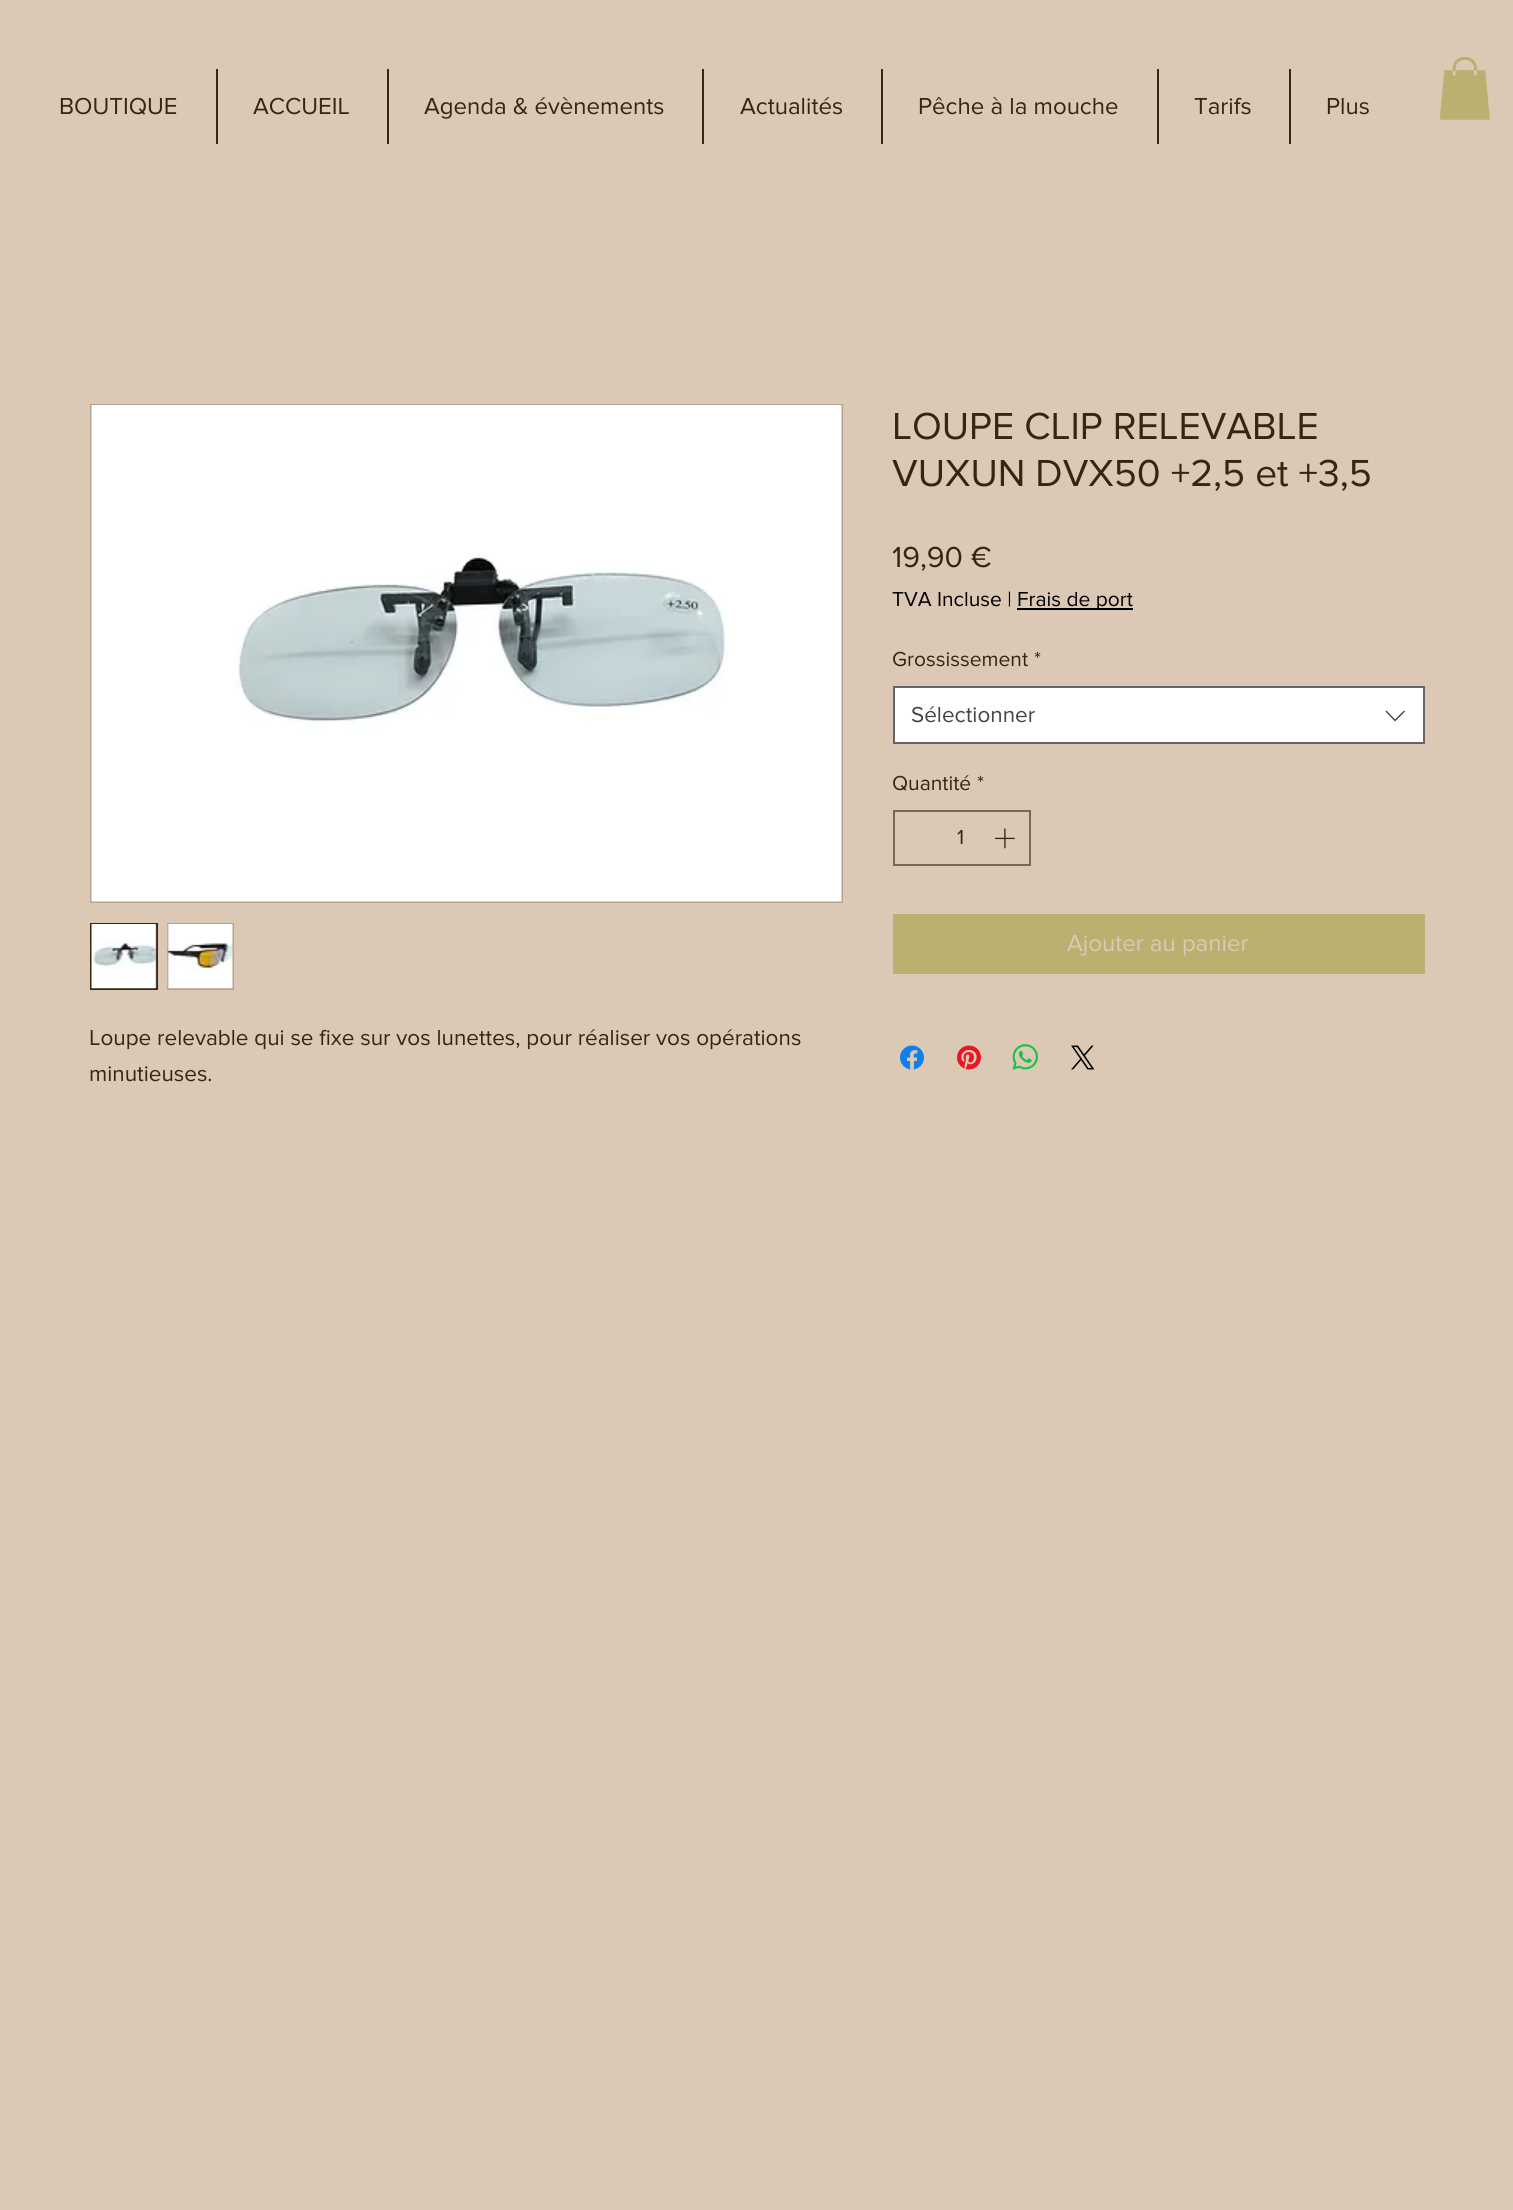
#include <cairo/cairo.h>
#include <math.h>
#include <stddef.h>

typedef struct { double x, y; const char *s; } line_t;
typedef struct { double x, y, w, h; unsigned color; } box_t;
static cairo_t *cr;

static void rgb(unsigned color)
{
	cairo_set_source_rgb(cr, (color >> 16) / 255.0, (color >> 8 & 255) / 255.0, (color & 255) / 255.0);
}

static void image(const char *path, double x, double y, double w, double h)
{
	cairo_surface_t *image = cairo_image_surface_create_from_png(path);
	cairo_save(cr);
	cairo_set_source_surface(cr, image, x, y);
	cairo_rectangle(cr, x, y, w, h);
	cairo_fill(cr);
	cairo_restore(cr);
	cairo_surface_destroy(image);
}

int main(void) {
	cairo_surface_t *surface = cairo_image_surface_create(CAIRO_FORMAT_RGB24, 1513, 2210);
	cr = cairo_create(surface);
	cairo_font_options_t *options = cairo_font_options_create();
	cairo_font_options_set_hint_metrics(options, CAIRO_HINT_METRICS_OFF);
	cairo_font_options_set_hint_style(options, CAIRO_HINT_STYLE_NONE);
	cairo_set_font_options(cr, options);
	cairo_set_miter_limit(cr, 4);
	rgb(0xdbc8b5);
	cairo_paint(cr);
	{
		static const box_t items[] = {
			{216, 69, 2, 75, 0x392411},
			{387, 69, 2, 75, 0x392411},
			{702, 69, 2, 75, 0x392411},
			{881, 69, 2, 75, 0x392411},
			{1157, 69, 2, 75, 0x392411},
			{1289, 69, 2, 75, 0x392411},
		};
		for (size_t i = 0; i < sizeof items / sizeof *items; i++) {
			rgb(items[i].color);
			cairo_rectangle(cr, items[i].x, items[i].y, items[i].w, items[i].h);
			cairo_fill(cr);
		}
	}
	image("img/1.png", 1439, 57, 51, 63);
	rgb(0x000000);
	cairo_rectangle(cr, 1017, 608, 116, 2);
	cairo_fill(cr);
	rgb(0xffffff);
	cairo_rectangle(cr, 894, 687, 530, 56);
	cairo_fill_preserve(cr);
	rgb(0x666666);
	cairo_stroke(cr);
	rgb(0x444444);
	cairo_set_fill_rule(cr, CAIRO_FILL_RULE_EVEN_ODD);
	cairo_new_path(cr);
	cairo_move_to(cr, 1404, 710.5);
	cairo_line_to(cr, 1405, 711.5);
	cairo_line_to(cr, 1395, 721.5);
	cairo_line_to(cr, 1385.5, 711.5);
	cairo_line_to(cr, 1386.5, 710.5);
	cairo_line_to(cr, 1395, 719.5);
	cairo_close_path(cr);
	cairo_fill(cr);
	cairo_rectangle(cr, 894, 811, 136, 54);
	rgb(0x7a6653);
	cairo_stroke(cr);
	rgb(0xd1c8be);
	cairo_rectangle(cr, 910, 838, 19, 1);
	cairo_fill(cr);
	image("img/2.png", 995, 828, 20, 21);
	rgb(0xbbb070);
	cairo_rectangle(cr, 893, 914, 532, 60);
	cairo_fill(cr);
	image("img/3.png", 900, 1045, 24, 25);
	image("img/4.png", 957, 1045, 24, 25);
	image("img/5.png", 1012, 1044, 26, 26);
	image("img/6.png", 1071, 1045, 24, 25);
	cairo_rectangle(cr, 91, 405, 751, 497);
	rgb(0xb8a28e);
	cairo_stroke(cr);
	image("img/7.png", 91, 405, 751, 497);
	cairo_rectangle(cr, 155, 925, 1, 63);
	cairo_fill(cr);
	cairo_rectangle(cr, 91, 924, 66, 65);
	rgb(0x392411);
	cairo_stroke(cr);
	image("img/8.png", 91, 924, 66, 65);
	rgb(0xb8a28e);
	cairo_rectangle(cr, 167, 923, 67, 67);
	cairo_fill(cr);
	image("img/9.png", 167, 924, 66, 65);
	cairo_select_font_face(cr, "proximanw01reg", CAIRO_FONT_SLANT_NORMAL, CAIRO_FONT_WEIGHT_NORMAL);
	cairo_set_font_size(cr, 24);
	rgb(0x392411);
	{
		static const line_t items[] = {
			{59, 114, "BOUTIQUE"},
			{253, 114, "ACCUEIL"},
			{424, 114, "Agenda & évènements"},
			{740, 114, "Actualités"},
			{918, 114, "Pêche à la mouche"},
			{1194, 114, "Tarifs"},
			{1326, 114, "Plus"},
		};
		for (size_t i = 0; i < sizeof items / sizeof *items; i++) {
			cairo_move_to(cr, items[i].x, items[i].y);
			cairo_show_text(cr, items[i].s);
		}
	}
	cairo_set_font_size(cr, 39);
	cairo_move_to(cr, 892, 439);
	cairo_show_text(cr, "LOUPE CLIP RELEVABLE");
	cairo_move_to(cr, 892, 486);
	cairo_show_text(cr, "VUXUN DVX50 +2,5 et +3,5");
	cairo_set_font_size(cr, 30);
	cairo_move_to(cr, 892, 567);
	cairo_show_text(cr, "19,90 €");
	cairo_set_font_size(cr, 21);
	rgb(0x000000);
	cairo_move_to(cr, 892, 606);
	cairo_show_text(cr, "TVA Incluse |");
	cairo_move_to(cr, 1017, 606);
	cairo_show_text(cr, "Frais de port");
	rgb(0x392411);
	cairo_move_to(cr, 892, 666);
	cairo_show_text(cr, "Grossissement");
	cairo_move_to(cr, 1034, 666);
	cairo_show_text(cr, "*");
	cairo_set_font_size(cr, 22.5);
	rgb(0x444444);
	cairo_move_to(cr, 911, 722);
	cairo_show_text(cr, "Sélectionner");
	cairo_set_font_size(cr, 21);
	rgb(0x392411);
	{
		static const line_t items[] = {
			{892, 790, "Quantité"},
			{977, 790, "*"},
			{957, 844, "1"},
		};
		for (size_t i = 0; i < sizeof items / sizeof *items; i++) {
			cairo_move_to(cr, items[i].x, items[i].y);
			cairo_show_text(cr, items[i].s);
		}
	}
	cairo_set_font_size(cr, 24);
	rgb(0xdbc8b5);
	cairo_move_to(cr, 1067, 951);
	cairo_show_text(cr, "Ajouter au panier");
	cairo_set_font_size(cr, 22.5);
	rgb(0x392411);
	cairo_move_to(cr, 89, 1045);
	cairo_show_text(cr, "Loupe relevable qui se fixe sur vos lunettes, pour réaliser vos opérations");
	cairo_move_to(cr, 89, 1081);
	cairo_show_text(cr, "minutieuses.");
	cairo_surface_write_to_png(surface, "page.png");
	cairo_font_options_destroy(options);
	cairo_destroy(cr);
	cairo_surface_destroy(surface);
	return 0;
}
